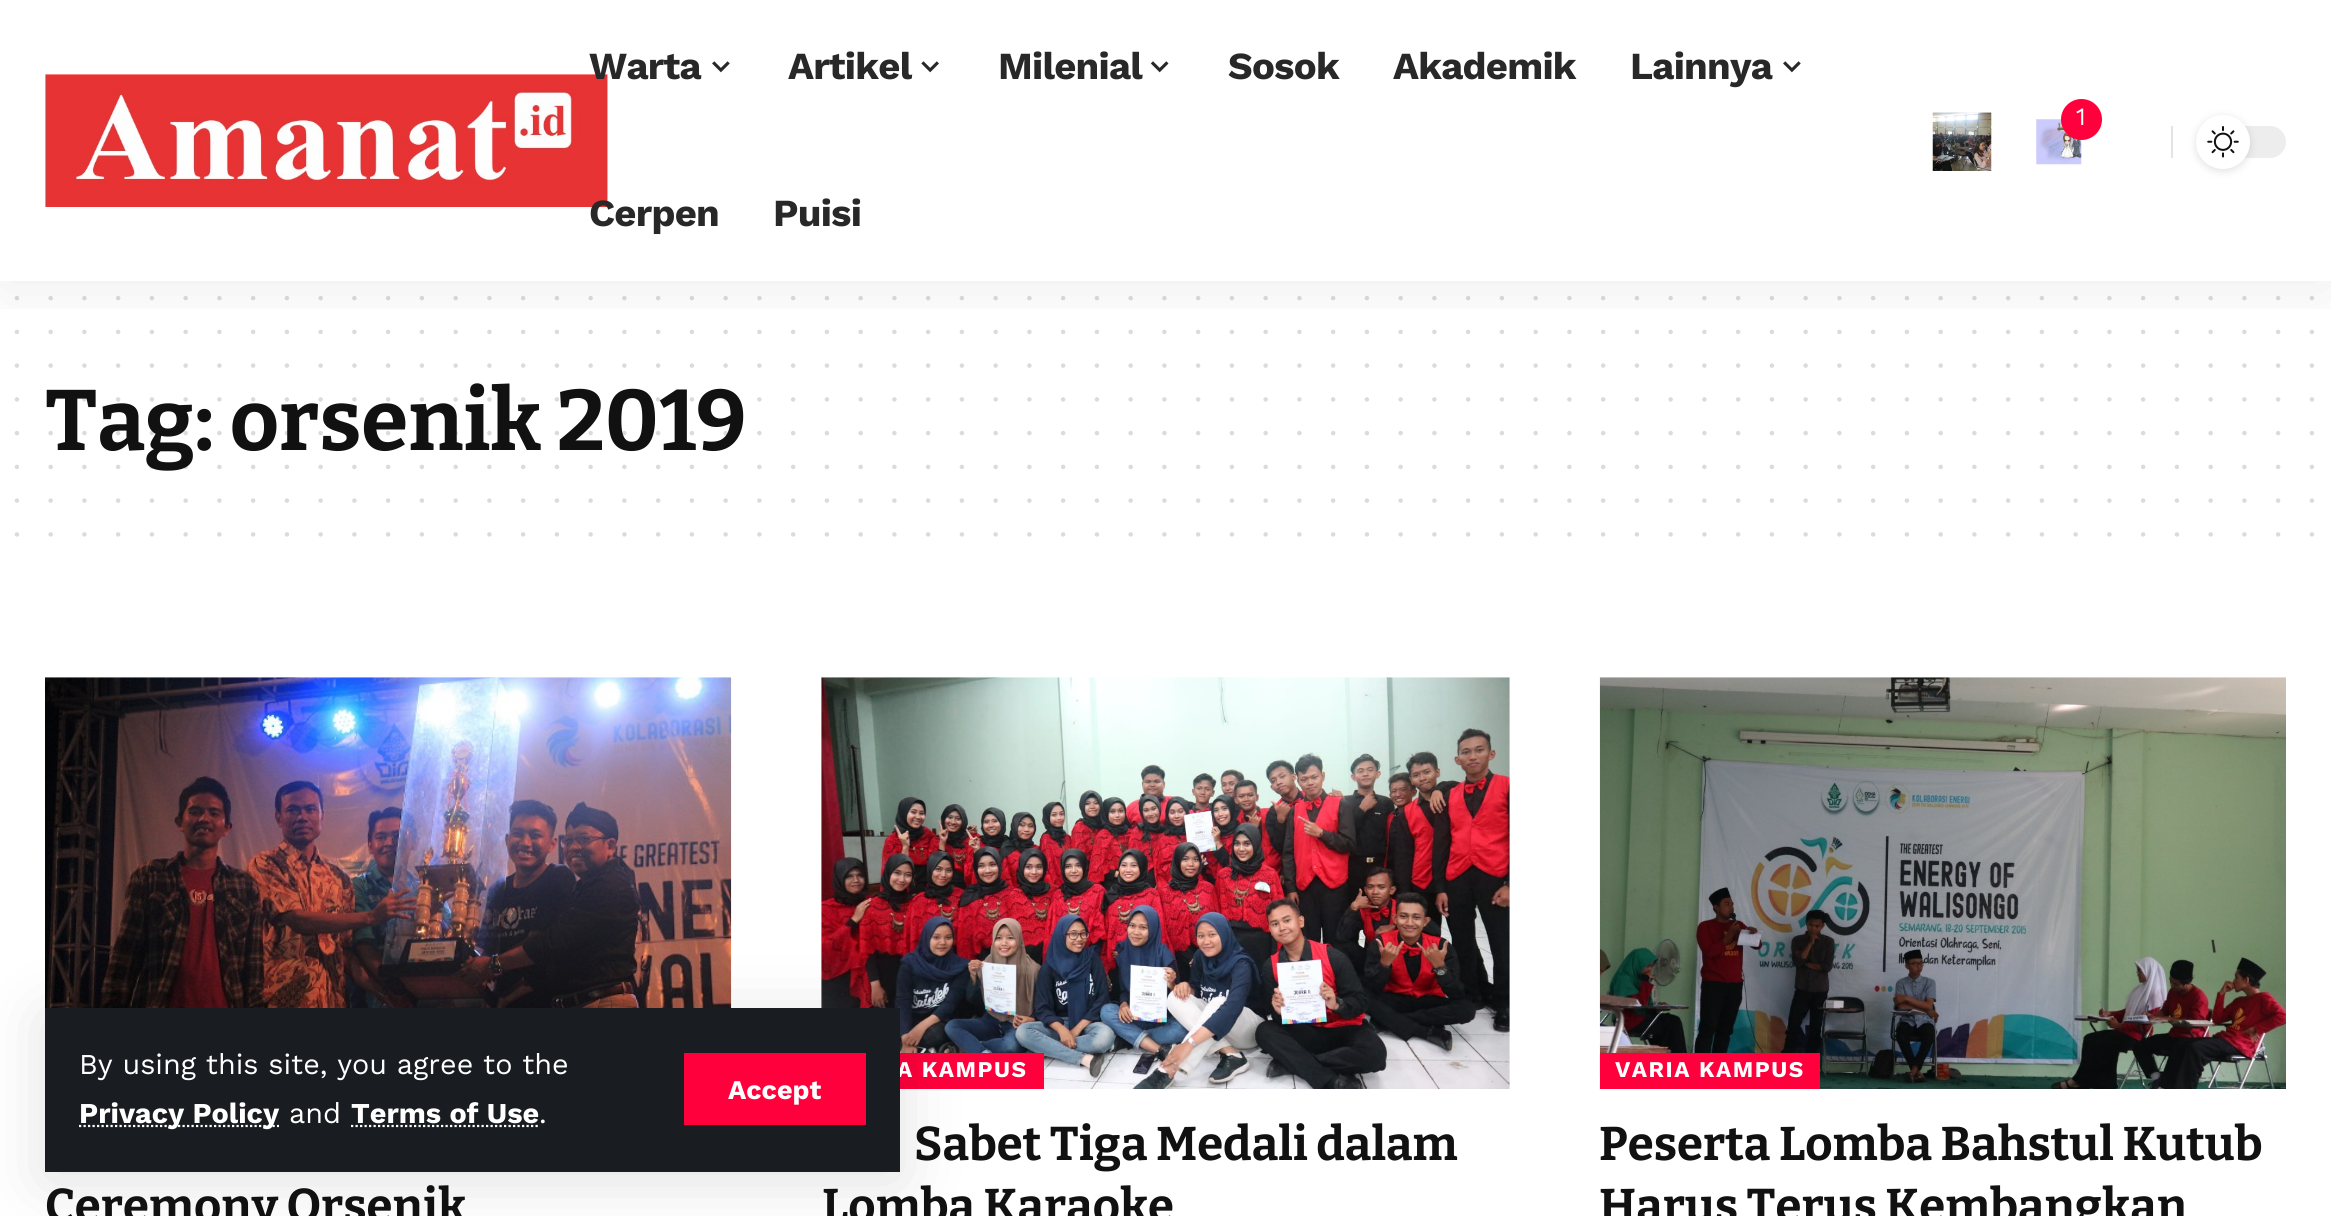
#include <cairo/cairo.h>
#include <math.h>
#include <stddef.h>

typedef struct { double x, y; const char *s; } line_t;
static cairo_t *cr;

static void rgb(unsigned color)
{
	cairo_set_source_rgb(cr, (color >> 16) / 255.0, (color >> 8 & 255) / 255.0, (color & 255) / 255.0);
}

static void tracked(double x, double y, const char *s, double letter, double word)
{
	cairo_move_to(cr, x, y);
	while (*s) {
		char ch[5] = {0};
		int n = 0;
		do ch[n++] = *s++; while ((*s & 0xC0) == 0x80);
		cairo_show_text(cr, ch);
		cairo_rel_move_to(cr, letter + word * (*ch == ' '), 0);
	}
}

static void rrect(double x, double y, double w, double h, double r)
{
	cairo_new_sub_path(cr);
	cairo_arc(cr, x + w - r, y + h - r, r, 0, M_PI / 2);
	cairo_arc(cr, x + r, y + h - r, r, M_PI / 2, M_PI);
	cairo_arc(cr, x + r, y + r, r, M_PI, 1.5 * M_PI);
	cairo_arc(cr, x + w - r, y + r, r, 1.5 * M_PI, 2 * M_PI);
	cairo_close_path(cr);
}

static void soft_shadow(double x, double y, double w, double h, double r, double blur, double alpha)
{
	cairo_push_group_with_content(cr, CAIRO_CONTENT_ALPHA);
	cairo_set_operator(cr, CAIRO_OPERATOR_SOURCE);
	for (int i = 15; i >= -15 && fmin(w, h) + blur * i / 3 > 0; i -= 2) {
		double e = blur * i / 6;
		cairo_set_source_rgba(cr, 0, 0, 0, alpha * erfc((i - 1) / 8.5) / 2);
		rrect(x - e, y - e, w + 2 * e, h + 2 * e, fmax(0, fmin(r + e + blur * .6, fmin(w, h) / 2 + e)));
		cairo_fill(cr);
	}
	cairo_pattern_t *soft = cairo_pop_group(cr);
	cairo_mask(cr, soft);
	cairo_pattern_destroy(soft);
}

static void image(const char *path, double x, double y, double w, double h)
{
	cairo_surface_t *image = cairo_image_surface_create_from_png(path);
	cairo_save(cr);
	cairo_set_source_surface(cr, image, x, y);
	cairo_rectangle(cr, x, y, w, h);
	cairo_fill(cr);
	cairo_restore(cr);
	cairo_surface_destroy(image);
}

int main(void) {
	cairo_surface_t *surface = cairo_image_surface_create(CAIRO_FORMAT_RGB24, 2331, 1216);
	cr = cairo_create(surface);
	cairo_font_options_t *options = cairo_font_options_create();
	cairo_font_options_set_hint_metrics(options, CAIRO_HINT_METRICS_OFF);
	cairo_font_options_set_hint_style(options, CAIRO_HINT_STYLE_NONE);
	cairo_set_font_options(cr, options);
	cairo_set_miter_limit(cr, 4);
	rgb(0xffffff);
	cairo_paint(cr);
	cairo_new_path(cr);
	cairo_move_to(cr, 16.9, 298.1);
	cairo_line_to(cr, 2312.3, 298.1);
	rgb(0xdbdbdb);
	cairo_set_line_width(cr, 4.5);
	cairo_set_line_cap(cr, CAIRO_LINE_CAP_ROUND);
	cairo_set_dash(cr, (double[]){0, 33.75}, 2, 0);
	cairo_stroke(cr);
	cairo_new_path(cr);
	cairo_move_to(cr, 16.9, 331.9);
	cairo_line_to(cr, 2312.3, 331.9);
	cairo_stroke(cr);
	cairo_new_path(cr);
	cairo_move_to(cr, 16.9, 365.6);
	cairo_line_to(cr, 2312.3, 365.6);
	cairo_stroke(cr);
	cairo_save(cr);
	cairo_rectangle(cr, 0, 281, 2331, 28);
	cairo_clip(cr);
	rgb(0x000000);
	soft_shadow(0, 9, 2331, 281, 0, 34, 0.07);
	cairo_restore(cr);
	image("img/1.png", 45, 74, 563, 133);
	image("img/2.png", 712, 61, 18, 12);
	image("img/3.png", 921, 61, 18, 12);
	image("img/4.png", 1150, 61, 19, 12);
	image("img/2.png", 1783, 61, 18, 12);
	image("img/5.png", 1932, 112, 60, 59);
	image("img/6.png", 2036, 119, 46, 46);
	rgb(0xff003c);
	cairo_arc(cr, 2081.5, 119.5, 20.5, 0, 2 * M_PI);
	cairo_fill(cr);
	rgb(0xe4e4e4);
	cairo_rectangle(cr, 2171, 126, 2, 32);
	cairo_fill(cr);
	rgb(0xededed);
	rrect(2196, 126, 90, 32, 16);
	cairo_fill(cr);
	rgb(0x000000);
	soft_shadow(2196, 117, 54, 54, 27, 4.5, 0.12);
	rgb(0xffffff);
	cairo_arc(cr, 2223, 142, 27, 0, 2 * M_PI);
	cairo_fill(cr);
	image("img/7.png", 2207, 126, 32, 32);
	image("img/8.png", 45, 677, 687, 331);
	image("img/9.png", 821, 677, 689, 412);
	rgb(0xff003c);
	cairo_rectangle(cr, 900, 1053, 144, 36);
	cairo_fill(cr);
	rgb(0x000000);
	soft_shadow(45, 1017, 855, 164, 0, 34, 0.12);
	cairo_new_path(cr);
	cairo_move_to(cr, 16.9, 500.6);
	cairo_line_to(cr, 2312.3, 500.6);
	rgb(0xdbdbdb);
	cairo_stroke(cr);
	cairo_new_path(cr);
	cairo_move_to(cr, 16.9, 534.4);
	cairo_line_to(cr, 2312.3, 534.4);
	cairo_stroke(cr);
	image("img/10.png", 1599, 677, 687, 412);
	rgb(0xff003c);
	cairo_rectangle(cr, 1600, 1053, 220, 36);
	cairo_fill(cr);
	cairo_select_font_face(cr, "Work Sans", CAIRO_FONT_SLANT_NORMAL, CAIRO_FONT_WEIGHT_BOLD);
	cairo_set_font_size(cr, 38.25);
	rgb(0x282828);
	{
		static const line_t items[] = {
			{589, 79, "Warta"},
			{788, 79, "Artikel"},
			{998, 79, "Milenial"},
			{1228, 79, "Sosok"},
			{1393, 79, "Akademik"},
			{1630, 79, "Lainnya"},
			{589, 226, "Cerpen"},
			{773, 226, "Puisi"},
		};
		for (size_t i = 0; i < sizeof items / sizeof *items; i++) {
			tracked(items[i].x, items[i].y, items[i].s, -0.75, 0);
		}
	}
	cairo_select_font_face(cr, "Work Sans", CAIRO_FONT_SLANT_NORMAL, CAIRO_FONT_WEIGHT_NORMAL);
	cairo_set_font_size(cr, 25);
	rgb(0xffffff);
	cairo_move_to(cr, 2076, 125);
	cairo_show_text(cr, "1");
	cairo_select_font_face(cr, "Bitter", CAIRO_FONT_SLANT_NORMAL, CAIRO_FONT_WEIGHT_BOLD);
	cairo_set_font_size(cr, 85.5);
	rgb(0x111111);
	cairo_move_to(cr, 45, 450);
	cairo_show_text(cr, "Tag: orsenik 2019");
	cairo_new_path(cr);
	cairo_move_to(cr, 16.9, 466.9);
	cairo_line_to(cr, 2312.3, 466.9);
	cairo_set_source_rgba(cr, 0.067, 0.067, 0.067, 0.15);
	cairo_stroke(cr);
	cairo_new_path(cr);
	cairo_move_to(cr, 16.9, 433.1);
	cairo_line_to(cr, 2312.3, 433.1);
	cairo_stroke(cr);
	cairo_new_path(cr);
	cairo_move_to(cr, 16.9, 399.4);
	cairo_line_to(cr, 2312.3, 399.4);
	cairo_stroke(cr);
	cairo_set_font_size(cr, 47.25);
	rgb(0x111111);
	cairo_move_to(cr, 45, 1222);
	cairo_show_text(cr, "Ceremony Orsenik");
	cairo_select_font_face(cr, "Work Sans", CAIRO_FONT_SLANT_NORMAL, CAIRO_FONT_WEIGHT_BOLD);
	cairo_set_font_size(cr, 22.5);
	rgb(0xffffff);
	tracked(897, 1077, "A KAMPUS", 1.5, 0);
	rgb(0x191c20);
	cairo_rectangle(cr, 45, 1008, 855, 164);
	cairo_fill(cr);
	rgb(0xff003c);
	cairo_rectangle(cr, 684, 1053, 182, 72);
	cairo_fill(cr);
	cairo_set_font_size(cr, 27);
	rgb(0xffffff);
	cairo_move_to(cr, 728, 1099);
	cairo_show_text(cr, "Accept");
	cairo_select_font_face(cr, "Work Sans", CAIRO_FONT_SLANT_NORMAL, CAIRO_FONT_WEIGHT_NORMAL);
	cairo_set_font_size(cr, 28.75);
	cairo_move_to(cr, 539, 1123);
	cairo_show_text(cr, ".");
	cairo_select_font_face(cr, "Work Sans", CAIRO_FONT_SLANT_NORMAL, CAIRO_FONT_WEIGHT_BOLD);
	cairo_move_to(cr, 351, 1123);
	cairo_show_text(cr, "Terms of Use");
	cairo_new_path(cr);
	cairo_move_to(cr, 351, 1126);
	cairo_line_to(cr, 539.5, 1126);
	cairo_set_line_width(cr, 2.2);
	cairo_set_line_cap(cr, CAIRO_LINE_CAP_BUTT);
	cairo_set_dash(cr, (double[]){2.25, 2.25}, 2, 0);
	cairo_stroke(cr);
	cairo_select_font_face(cr, "Work Sans", CAIRO_FONT_SLANT_NORMAL, CAIRO_FONT_WEIGHT_NORMAL);
	cairo_move_to(cr, 289, 1123);
	cairo_show_text(cr, "and");
	cairo_new_path(cr);
	cairo_move_to(cr, 79, 1126);
	cairo_line_to(cr, 279, 1126);
	cairo_stroke(cr);
	cairo_select_font_face(cr, "Work Sans", CAIRO_FONT_SLANT_NORMAL, CAIRO_FONT_WEIGHT_BOLD);
	cairo_move_to(cr, 79, 1123);
	cairo_show_text(cr, "Privacy Policy");
	cairo_select_font_face(cr, "Work Sans", CAIRO_FONT_SLANT_NORMAL, CAIRO_FONT_WEIGHT_NORMAL);
	cairo_move_to(cr, 79, 1074);
	cairo_show_text(cr, "By using this site, you agree to the");
	cairo_select_font_face(cr, "Bitter", CAIRO_FONT_SLANT_NORMAL, CAIRO_FONT_WEIGHT_BOLD);
	cairo_set_font_size(cr, 47.25);
	rgb(0x111111);
	cairo_move_to(cr, 914, 1160);
	cairo_show_text(cr, "Sabet Tiga Medali dalam");
	cairo_move_to(cr, 822, 1222);
	cairo_show_text(cr, "Lomba Karaoke");
	cairo_select_font_face(cr, "Work Sans", CAIRO_FONT_SLANT_NORMAL, CAIRO_FONT_WEIGHT_BOLD);
	cairo_set_font_size(cr, 22.5);
	rgb(0xffffff);
	tracked(1615, 1077, "VARIA KAMPUS", 1.5, 0);
	cairo_select_font_face(cr, "Bitter", CAIRO_FONT_SLANT_NORMAL, CAIRO_FONT_WEIGHT_BOLD);
	cairo_set_font_size(cr, 47.25);
	rgb(0x111111);
	cairo_move_to(cr, 1599, 1160);
	cairo_show_text(cr, "Peserta Lomba Bahstul Kutub");
	cairo_move_to(cr, 1599, 1222);
	cairo_show_text(cr, "Harus Terus Kembangkan");
	cairo_surface_write_to_png(surface, "page.png");
	cairo_font_options_destroy(options);
	cairo_destroy(cr);
	cairo_surface_destroy(surface);
	return 0;
}
